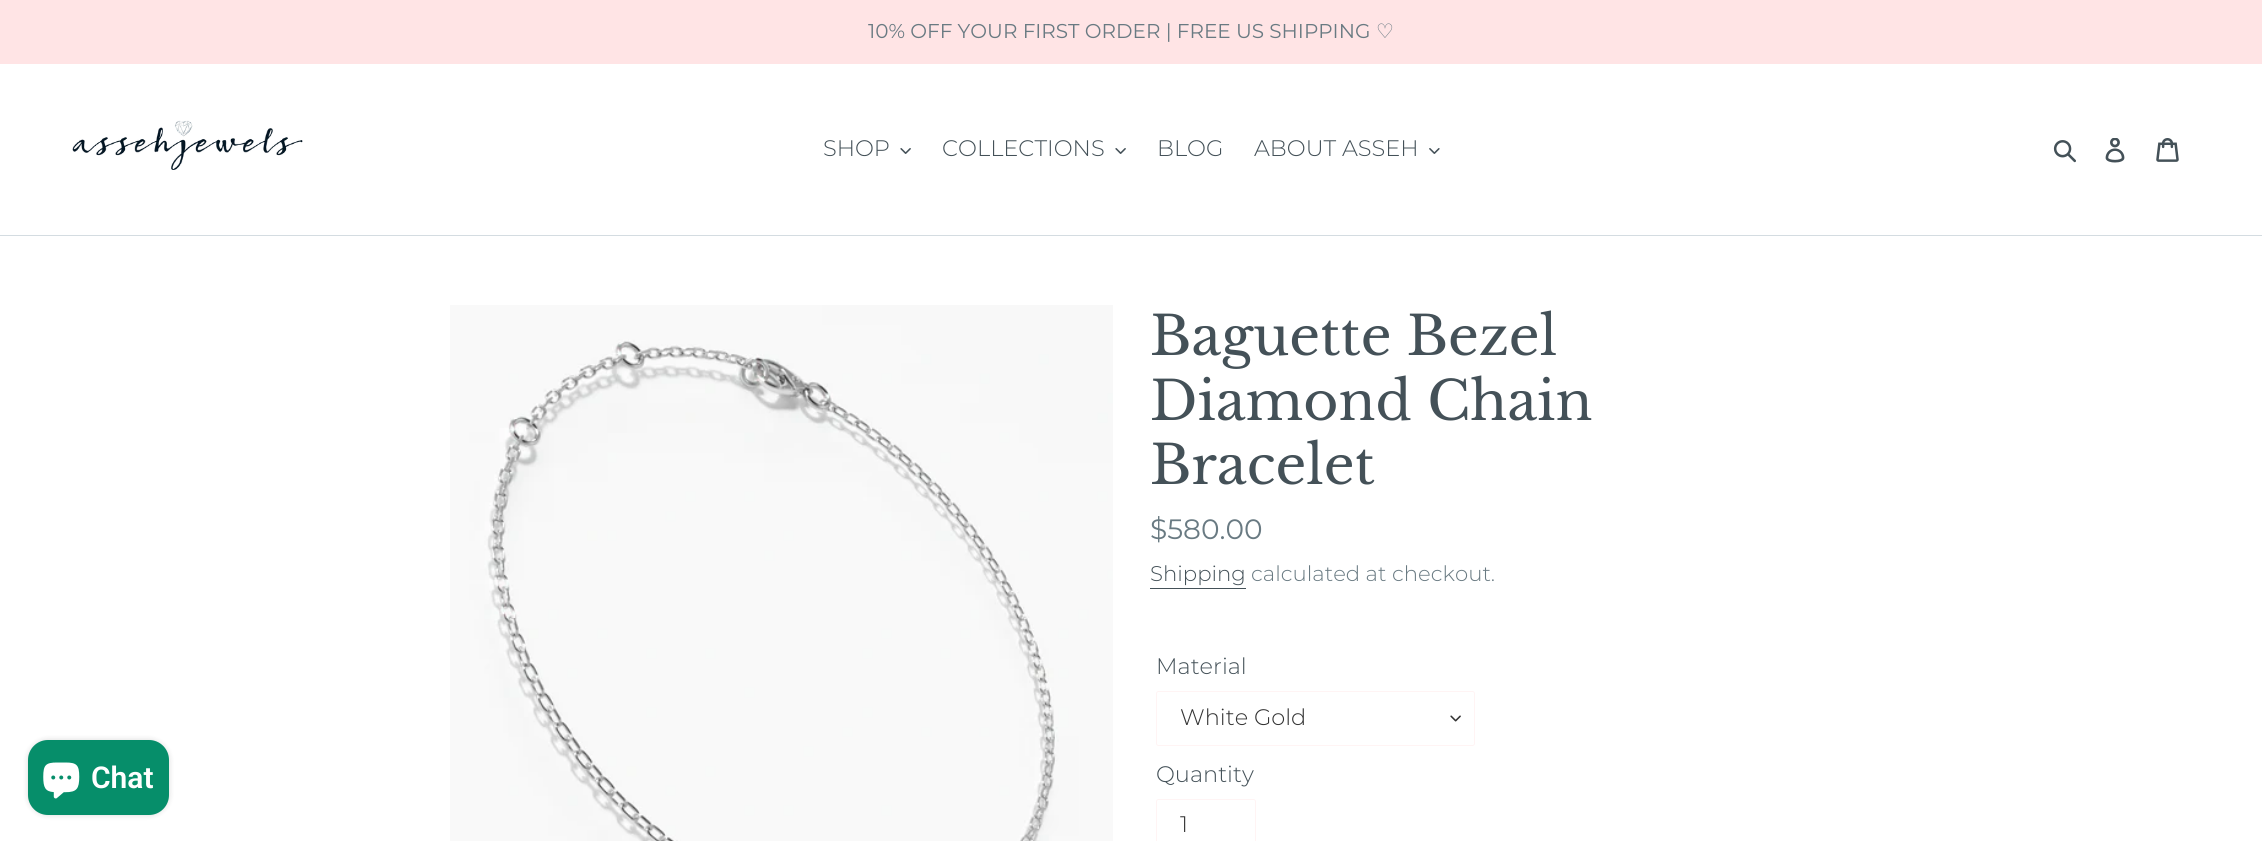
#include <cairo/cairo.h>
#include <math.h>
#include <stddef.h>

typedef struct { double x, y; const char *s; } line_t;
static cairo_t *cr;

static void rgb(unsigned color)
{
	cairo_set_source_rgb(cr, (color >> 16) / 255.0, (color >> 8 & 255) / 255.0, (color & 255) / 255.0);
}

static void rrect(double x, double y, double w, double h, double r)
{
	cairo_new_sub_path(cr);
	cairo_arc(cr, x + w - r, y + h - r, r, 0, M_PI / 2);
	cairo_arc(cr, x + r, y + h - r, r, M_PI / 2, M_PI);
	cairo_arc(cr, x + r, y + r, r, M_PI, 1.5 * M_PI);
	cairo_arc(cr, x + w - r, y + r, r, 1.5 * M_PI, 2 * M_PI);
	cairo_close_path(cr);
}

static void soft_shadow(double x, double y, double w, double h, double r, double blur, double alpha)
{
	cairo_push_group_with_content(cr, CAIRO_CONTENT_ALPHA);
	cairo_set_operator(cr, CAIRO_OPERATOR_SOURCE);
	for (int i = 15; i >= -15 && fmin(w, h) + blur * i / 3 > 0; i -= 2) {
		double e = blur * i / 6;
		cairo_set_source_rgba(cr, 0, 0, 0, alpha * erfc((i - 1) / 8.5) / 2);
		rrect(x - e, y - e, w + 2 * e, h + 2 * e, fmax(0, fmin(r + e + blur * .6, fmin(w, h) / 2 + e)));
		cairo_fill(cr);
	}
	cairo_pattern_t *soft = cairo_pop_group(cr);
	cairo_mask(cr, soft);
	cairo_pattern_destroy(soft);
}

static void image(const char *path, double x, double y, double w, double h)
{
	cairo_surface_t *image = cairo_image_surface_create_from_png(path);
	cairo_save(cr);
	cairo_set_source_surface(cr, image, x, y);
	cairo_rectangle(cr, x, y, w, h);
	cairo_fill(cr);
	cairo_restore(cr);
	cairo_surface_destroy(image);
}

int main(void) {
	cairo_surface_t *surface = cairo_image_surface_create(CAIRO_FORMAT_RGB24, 2262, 841);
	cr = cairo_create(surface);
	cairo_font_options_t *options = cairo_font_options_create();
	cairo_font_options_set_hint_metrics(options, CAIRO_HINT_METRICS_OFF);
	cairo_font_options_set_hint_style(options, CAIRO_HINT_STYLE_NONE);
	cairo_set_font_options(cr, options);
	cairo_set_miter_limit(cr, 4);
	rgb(0xffffff);
	cairo_paint(cr);
	rgb(0xffe4e5);
	cairo_rectangle(cr, 0, 0, 2262, 64);
	cairo_fill(cr);
	rgb(0xd4dce1);
	cairo_rectangle(cr, 0, 235, 2262, 1);
	cairo_fill(cr);
	image("img/1.png", 72, 120, 231, 50);
	image("img/2.png", 900, 148, 11, 6);
	image("img/2.png", 1115, 148, 11, 6);
	image("img/3.png", 1429, 148, 11, 6);
	image("img/4.png", 2053, 140, 23, 23);
	image("img/5.png", 2105, 138, 20, 25);
	image("img/6.png", 2156, 138, 23, 24);
	rgb(0x000000);
	soft_shadow(28, 740, 141, 75, 20, 3, 0.15);
	rgb(0x068e6a);
	rrect(28, 740, 141, 75, 20);
	cairo_fill(cr);
	image("img/7.png", 43, 762, 37, 37);
	image("img/8.png", 450, 305, 663, 536);
	rgb(0x445158);
	cairo_rectangle(cr, 1150, 588, 96, 1);
	cairo_fill(cr);
	image("img/9.png", 1450, 715, 11, 7);
	rrect(1156.5, 691.5, 318, 54, 2);
	rgb(0xfff4f4);
	cairo_set_line_width(cr, 1);
	cairo_stroke(cr);
	rrect(1156.5, 799.5, 99, 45, 2);
	cairo_stroke(cr);
	cairo_select_font_face(cr, "Montserrat", CAIRO_FONT_SLANT_NORMAL, CAIRO_FONT_WEIGHT_NORMAL);
	cairo_set_font_size(cr, 20);
	rgb(0x697a82);
	cairo_move_to(cr, 868, 38);
	cairo_show_text(cr, "10% OFF YOUR FIRST ORDER | FREE US SHIPPING");
	cairo_select_font_face(cr, "DejaVu Sans", CAIRO_FONT_SLANT_NORMAL, CAIRO_FONT_WEIGHT_NORMAL);
	cairo_move_to(cr, 1376, 38);
	cairo_show_text(cr, "♡");
	cairo_select_font_face(cr, "Montserrat Light", CAIRO_FONT_SLANT_NORMAL, CAIRO_FONT_WEIGHT_NORMAL);
	cairo_set_font_size(cr, 22.5);
	rgb(0x445158);
	{
		static const line_t items[] = {
			{823, 156, "SHOP"},
			{942, 156, "COLLECTIONS"},
			{1157, 156, "BLOG"},
			{1254, 156, "ABOUT ASSEH"},
		};
		for (size_t i = 0; i < sizeof items / sizeof *items; i++) {
			cairo_move_to(cr, items[i].x, items[i].y);
			cairo_show_text(cr, items[i].s);
		}
	}
	cairo_select_font_face(cr, "Roboto SemiBold", CAIRO_FONT_SLANT_NORMAL, CAIRO_FONT_WEIGHT_NORMAL);
	cairo_set_font_size(cr, 30);
	rgb(0xffffff);
	cairo_move_to(cr, 91, 788);
	cairo_show_text(cr, "Chat");
	cairo_select_font_face(cr, "Libre Baskerville", CAIRO_FONT_SLANT_NORMAL, CAIRO_FONT_WEIGHT_NORMAL);
	cairo_set_font_size(cr, 53.75);
	rgb(0x445158);
	{
		static const line_t items[] = {
			{1150, 355, "Baguette Bezel"},
			{1150, 420, "Diamond Chain"},
			{1150, 484, "Bracelet"},
		};
		for (size_t i = 0; i < sizeof items / sizeof *items; i++) {
			cairo_move_to(cr, items[i].x, items[i].y);
			cairo_show_text(cr, items[i].s);
		}
	}
	cairo_select_font_face(cr, "Montserrat", CAIRO_FONT_SLANT_NORMAL, CAIRO_FONT_WEIGHT_NORMAL);
	cairo_set_font_size(cr, 28);
	rgb(0x697a82);
	cairo_move_to(cr, 1150, 539);
	cairo_show_text(cr, "$580.00");
	cairo_select_font_face(cr, "Montserrat Light", CAIRO_FONT_SLANT_NORMAL, CAIRO_FONT_WEIGHT_NORMAL);
	cairo_set_font_size(cr, 21.25);
	rgb(0x445158);
	cairo_move_to(cr, 1150, 581);
	cairo_show_text(cr, "Shipping");
	rgb(0x697a82);
	cairo_move_to(cr, 1251, 581);
	cairo_show_text(cr, "calculated at checkout.");
	cairo_set_font_size(cr, 22.5);
	rgb(0x445158);
	cairo_move_to(cr, 1156, 674);
	cairo_show_text(cr, "Material");
	rgb(0x333333);
	cairo_move_to(cr, 1180, 725);
	cairo_show_text(cr, "White Gold");
	rgb(0x445158);
	cairo_move_to(cr, 1156, 782);
	cairo_show_text(cr, "Quantity");
	rgb(0x333333);
	cairo_move_to(cr, 1180, 832);
	cairo_show_text(cr, "1");
	cairo_surface_write_to_png(surface, "page.png");
	cairo_font_options_destroy(options);
	cairo_destroy(cr);
	cairo_surface_destroy(surface);
	return 0;
}
